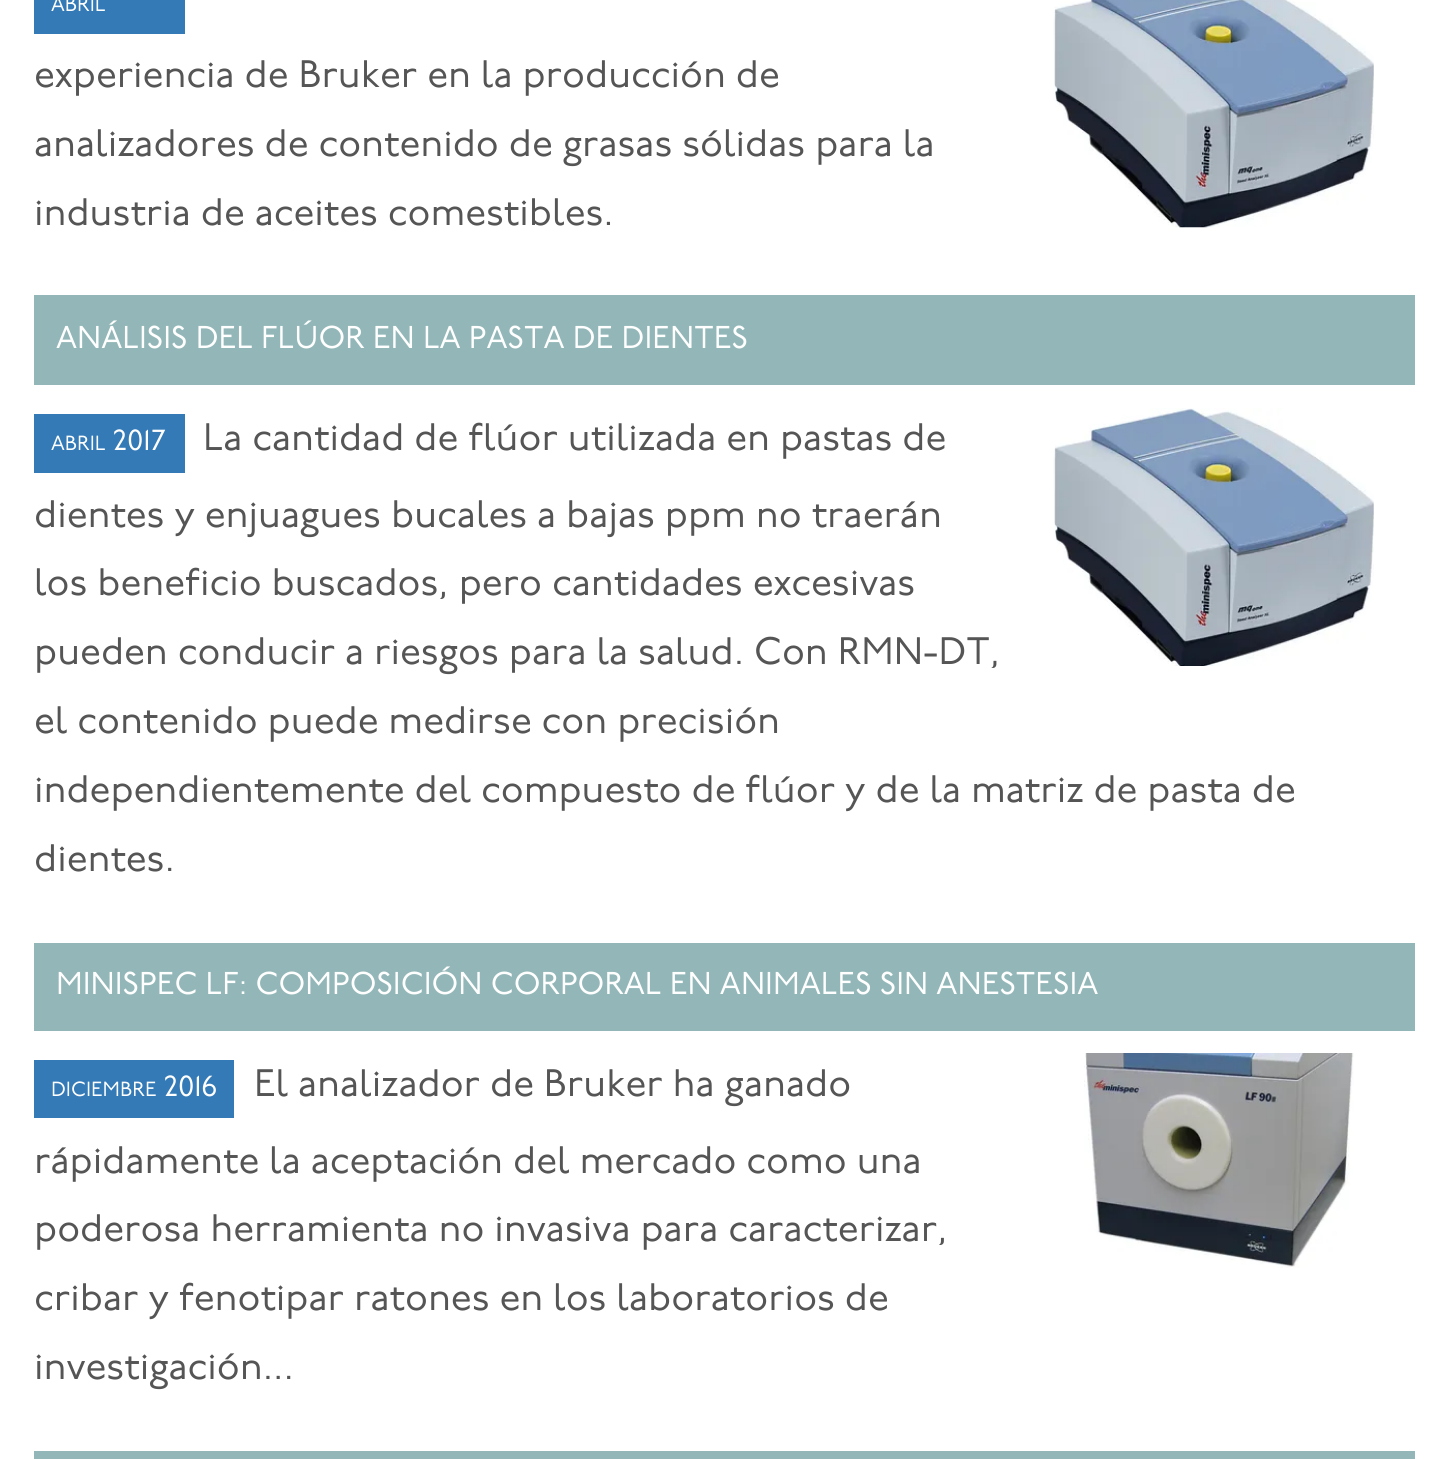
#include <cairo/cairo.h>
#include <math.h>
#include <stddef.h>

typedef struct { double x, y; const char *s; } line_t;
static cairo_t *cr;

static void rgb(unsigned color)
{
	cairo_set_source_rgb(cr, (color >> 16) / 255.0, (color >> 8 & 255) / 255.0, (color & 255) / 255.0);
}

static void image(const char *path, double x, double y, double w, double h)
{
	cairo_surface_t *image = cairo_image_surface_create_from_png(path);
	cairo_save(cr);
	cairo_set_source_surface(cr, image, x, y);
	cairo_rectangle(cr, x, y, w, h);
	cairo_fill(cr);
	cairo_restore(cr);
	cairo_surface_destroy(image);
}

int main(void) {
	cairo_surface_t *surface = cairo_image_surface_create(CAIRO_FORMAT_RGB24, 1448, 1459);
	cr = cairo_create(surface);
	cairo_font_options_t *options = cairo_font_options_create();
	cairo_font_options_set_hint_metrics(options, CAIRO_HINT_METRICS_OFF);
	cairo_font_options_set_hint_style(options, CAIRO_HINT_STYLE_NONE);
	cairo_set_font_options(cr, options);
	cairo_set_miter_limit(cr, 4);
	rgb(0xffffff);
	cairo_paint(cr);
	rgb(0x337ab7);
	cairo_rectangle(cr, 34, 0, 151, 34);
	cairo_fill(cr);
	image("img/1.png", 1053, 0, 321, 228);
	rgb(0x93b7b8);
	cairo_rectangle(cr, 34, 295, 1381, 90);
	cairo_fill(cr);
	rgb(0x337ab7);
	cairo_rectangle(cr, 34, 414, 151, 59);
	cairo_fill(cr);
	image("img/2.png", 1053, 408, 321, 258);
	rgb(0x93b7b8);
	cairo_rectangle(cr, 34, 943, 1381, 88);
	cairo_fill(cr);
	rgb(0x337ab7);
	cairo_rectangle(cr, 34, 1060, 200, 58);
	cairo_fill(cr);
	image("img/3.png", 1084, 1053, 270, 215);
	rgb(0x93b7b8);
	cairo_rectangle(cr, 34, 1451, 1381, 8);
	cairo_fill(cr);
	cairo_select_font_face(cr, "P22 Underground", CAIRO_FONT_SLANT_NORMAL, CAIRO_FONT_WEIGHT_NORMAL);
	cairo_set_font_size(cr, 20.5);
	rgb(0xffffff);
	cairo_move_to(cr, 51, 11);
	cairo_show_text(cr, "ABRIL");
	cairo_set_font_size(cr, 38.25);
	rgb(0x555555);
	{
		static const line_t items[] = {
			{34, 87, "experiencia de Bruker en la producción de"},
			{34, 156, "analizadores de contenido de grasas sólidas para la"},
			{34, 225, "industria de aceites comestibles."},
		};
		for (size_t i = 0; i < sizeof items / sizeof *items; i++) {
			cairo_move_to(cr, items[i].x, items[i].y);
			cairo_show_text(cr, items[i].s);
		}
	}
	cairo_set_font_size(cr, 31.5);
	rgb(0xffffff);
	cairo_move_to(cr, 56, 348);
	cairo_show_text(cr, "ANÁLISIS DEL FLÚOR EN LA PASTA DE DIENTES");
	cairo_set_font_size(cr, 20.5);
	cairo_move_to(cr, 51, 450);
	cairo_show_text(cr, "ABRIL");
	cairo_set_font_size(cr, 29);
	cairo_move_to(cr, 113, 450);
	cairo_show_text(cr, "2017");
	cairo_set_font_size(cr, 38.25);
	rgb(0x555555);
	{
		static const line_t items[] = {
			{203, 450, "La cantidad de flúor utilizada en pastas de"},
			{34, 527, "dientes y enjuagues bucales a bajas ppm no traerán"},
			{34, 595, "los beneficio buscados, pero cantidades excesivas"},
			{34, 664, "pueden conducir a riesgos para la salud. Con RMN-DT,"},
			{34, 733, "el contenido puede medirse con precisión"},
			{34, 802, "independientemente del compuesto de flúor y de la matriz de pasta de"},
			{34, 871, "dientes."},
		};
		for (size_t i = 0; i < sizeof items / sizeof *items; i++) {
			cairo_move_to(cr, items[i].x, items[i].y);
			cairo_show_text(cr, items[i].s);
		}
	}
	cairo_set_font_size(cr, 31.5);
	rgb(0xffffff);
	cairo_move_to(cr, 56, 994);
	cairo_show_text(cr, "MINISPEC LF: COMPOSICIÓN CORPORAL EN ANIMALES SIN ANESTESIA");
	cairo_set_font_size(cr, 20.5);
	cairo_move_to(cr, 51, 1096);
	cairo_show_text(cr, "DICIEMBRE");
	cairo_set_font_size(cr, 29);
	cairo_move_to(cr, 164, 1096);
	cairo_show_text(cr, "2016");
	cairo_set_font_size(cr, 38.25);
	rgb(0x555555);
	{
		static const line_t items[] = {
			{254, 1096, "El analizador de Bruker ha ganado"},
			{34, 1173, "rápidamente la aceptación del mercado como una"},
			{34, 1241, "poderosa herramienta no invasiva para caracterizar,"},
			{34, 1310, "cribar y fenotipar ratones en los laboratorios de"},
			{34, 1379, "investigación..."},
		};
		for (size_t i = 0; i < sizeof items / sizeof *items; i++) {
			cairo_move_to(cr, items[i].x, items[i].y);
			cairo_show_text(cr, items[i].s);
		}
	}
	cairo_surface_write_to_png(surface, "page.png");
	cairo_font_options_destroy(options);
	cairo_destroy(cr);
	cairo_surface_destroy(surface);
	return 0;
}
